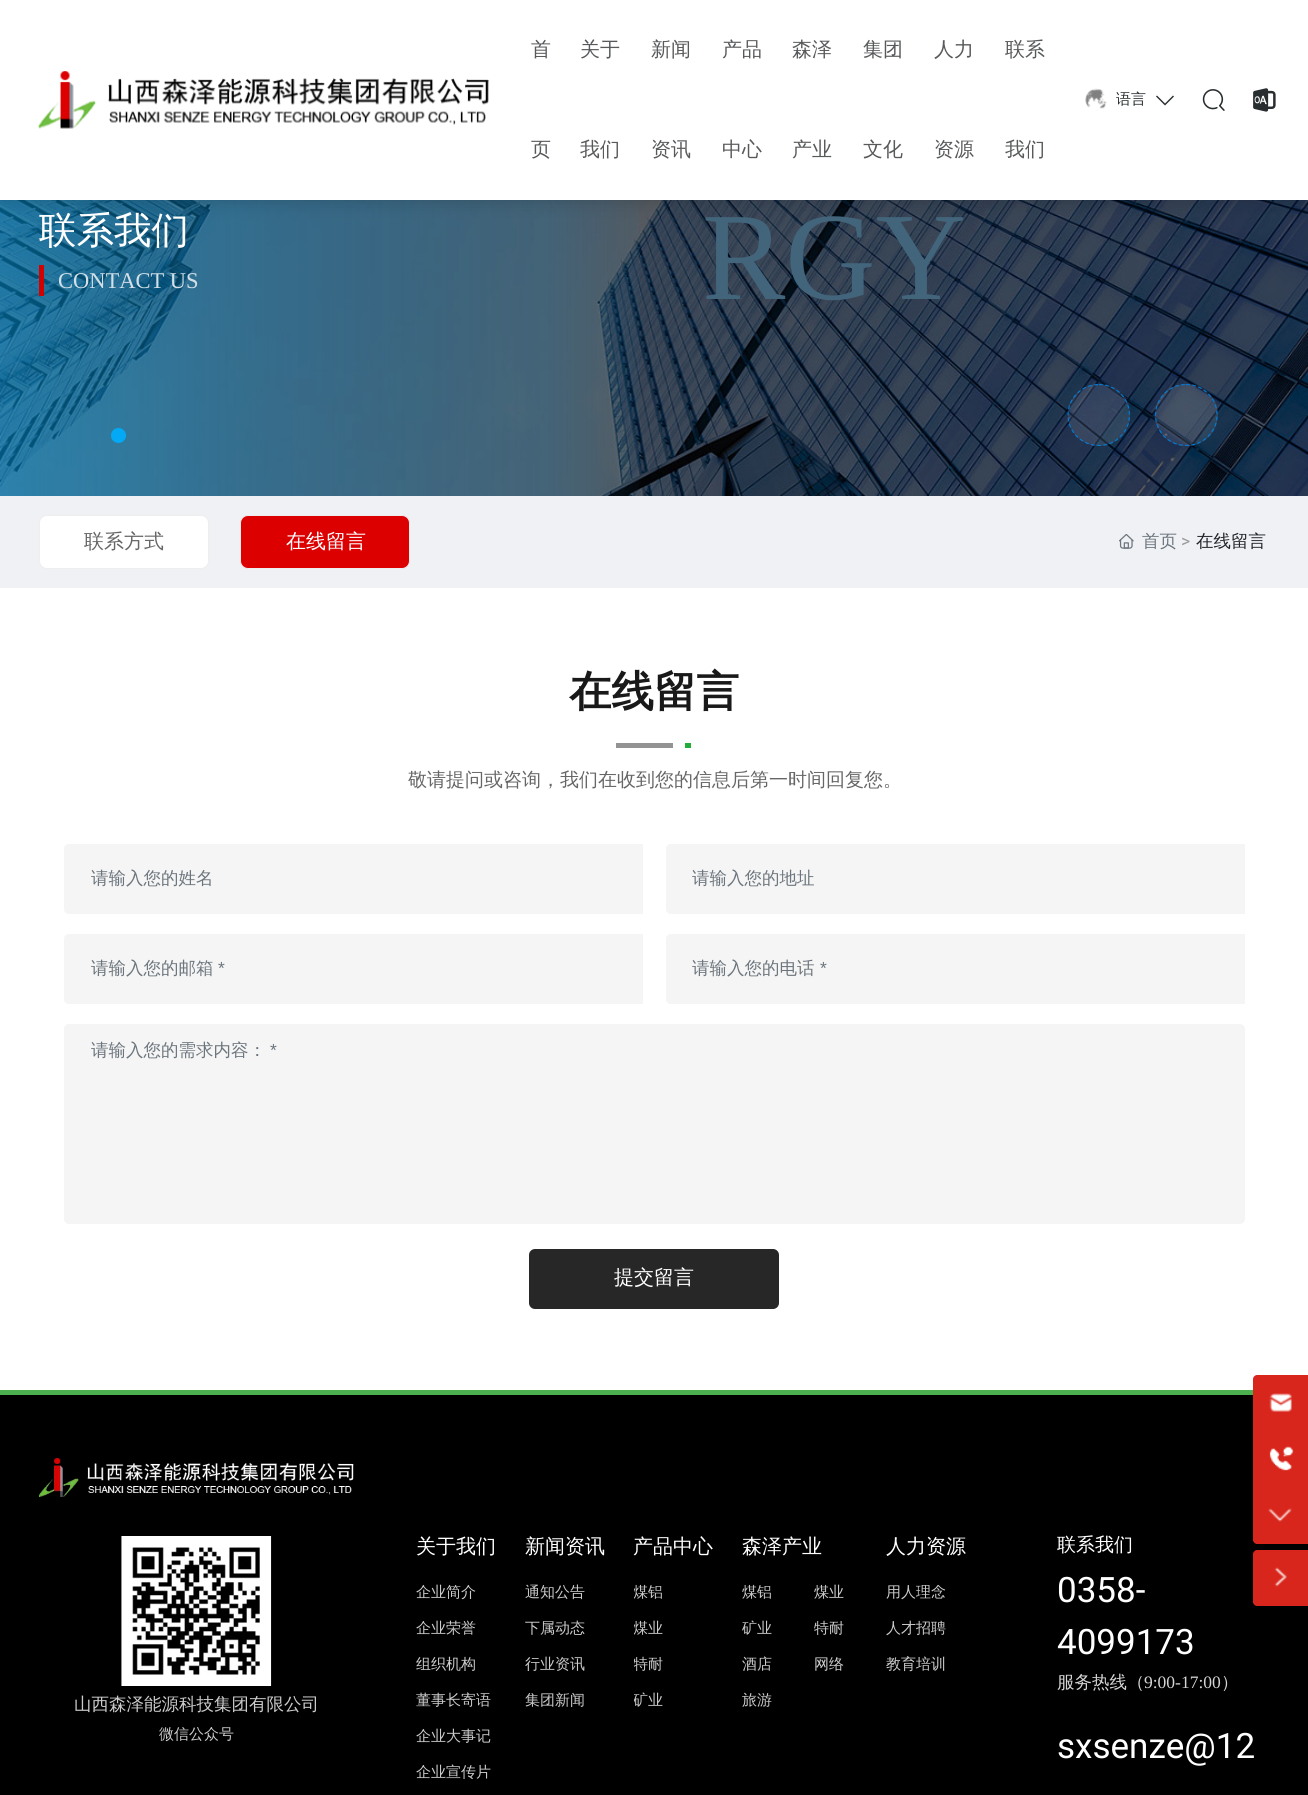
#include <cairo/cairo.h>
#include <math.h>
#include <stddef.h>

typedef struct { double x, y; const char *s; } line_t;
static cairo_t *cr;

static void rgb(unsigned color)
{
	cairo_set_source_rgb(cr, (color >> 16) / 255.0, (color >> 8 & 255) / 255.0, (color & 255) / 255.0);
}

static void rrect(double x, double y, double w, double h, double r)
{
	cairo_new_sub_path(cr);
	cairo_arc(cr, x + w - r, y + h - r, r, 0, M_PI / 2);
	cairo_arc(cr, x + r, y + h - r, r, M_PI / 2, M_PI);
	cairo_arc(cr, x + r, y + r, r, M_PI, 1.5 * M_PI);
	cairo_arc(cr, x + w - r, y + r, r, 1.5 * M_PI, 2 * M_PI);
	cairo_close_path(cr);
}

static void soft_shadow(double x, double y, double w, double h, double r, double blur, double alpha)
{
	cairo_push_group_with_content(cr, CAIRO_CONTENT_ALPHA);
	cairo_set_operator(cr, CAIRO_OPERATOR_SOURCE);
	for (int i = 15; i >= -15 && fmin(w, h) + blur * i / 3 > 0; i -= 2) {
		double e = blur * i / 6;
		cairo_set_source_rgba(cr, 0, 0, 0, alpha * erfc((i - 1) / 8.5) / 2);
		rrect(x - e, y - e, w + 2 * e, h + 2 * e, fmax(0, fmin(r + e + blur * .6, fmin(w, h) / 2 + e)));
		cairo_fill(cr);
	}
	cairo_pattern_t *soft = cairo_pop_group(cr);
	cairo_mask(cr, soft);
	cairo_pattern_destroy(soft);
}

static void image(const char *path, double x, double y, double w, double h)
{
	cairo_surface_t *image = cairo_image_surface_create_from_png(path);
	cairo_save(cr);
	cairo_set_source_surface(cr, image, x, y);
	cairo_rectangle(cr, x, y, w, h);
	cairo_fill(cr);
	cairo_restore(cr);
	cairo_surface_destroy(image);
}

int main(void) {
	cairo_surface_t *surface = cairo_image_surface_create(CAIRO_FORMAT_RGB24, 1308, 1795);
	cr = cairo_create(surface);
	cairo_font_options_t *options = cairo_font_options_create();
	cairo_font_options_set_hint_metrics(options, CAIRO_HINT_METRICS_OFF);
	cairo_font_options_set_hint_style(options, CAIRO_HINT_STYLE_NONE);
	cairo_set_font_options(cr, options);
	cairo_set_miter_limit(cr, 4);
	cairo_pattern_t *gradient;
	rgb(0xffffff);
	cairo_paint(cr);
	image("img/6.png", 1307, 200, 1, 296);
	image("img/5.png", 0, 200, 1308, 296);
	gradient = cairo_pattern_create_linear(0, 246, 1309, 246);
	cairo_pattern_add_color_stop_rgba(gradient, 0, 0.012, 0.663, 0.957, 0.5);
	cairo_pattern_add_color_stop_rgba(gradient, 0.2, 0.012, 0.663, 0.957, 0.3);
	cairo_pattern_add_color_stop_rgba(gradient, 0.42, 0.012, 0.663, 0.957, 0.15);
	cairo_pattern_add_color_stop_rgba(gradient, 0.5, 0.012, 0.663, 0.957, 0);
	cairo_pattern_add_color_stop_rgba(gradient, 0.5, 0.306, 0.337, 0.357, 0);
	cairo_pattern_add_color_stop_rgba(gradient, 1, 0.306, 0.337, 0.357, 0);
	cairo_set_source(cr, gradient);
	cairo_pattern_destroy(gradient);
	cairo_rectangle(cr, 0, 200, 639, 296);
	cairo_fill(cr);
	rgb(0x000000);
	soft_shadow(0, 0, 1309, 200, 0, 9.5, 0.2);
	rgb(0xffffff);
	cairo_rectangle(cr, 0, 0, 1308, 200);
	cairo_fill(cr);
	image("img/1.png", 38, 71, 451, 58);
	image("img/2.png", 1085, 88, 22, 23);
	rgb(0x282d2f);
	cairo_new_path(cr);
	cairo_move_to(cr, 1157, 95.5);
	cairo_line_to(cr, 1156, 96.5);
	cairo_line_to(cr, 1165, 105.5);
	cairo_line_to(cr, 1174, 96.5);
	cairo_line_to(cr, 1173, 95.5);
	cairo_line_to(cr, 1165, 103.5);
	cairo_close_path(cr);
	cairo_fill(cr);
	image("img/3.png", 1202, 89, 23, 22);
	image("img/4.png", 1253, 88, 23, 24);
	rgb(0xd30000);
	cairo_rectangle(cr, 39, 265, 5, 31);
	cairo_fill(cr);
	rgb(0x03a9f4);
	cairo_arc(cr, 118.5, 435.5, 7.5, 0, 2 * M_PI);
	cairo_fill(cr);
	cairo_set_source_rgba(cr, 1, 1, 1, 0.1);
	cairo_arc(cr, 1099, 415, 31, 0, 2 * M_PI);
	cairo_fill(cr);
	cairo_new_path(cr);
	cairo_move_to(cr, 1099, 384.5);
	cairo_curve_to(cr, 1115.5, 384.5, 1129.5, 398, 1129.5, 415);
	cairo_curve_to(cr, 1129.5, 432, 1115.5, 445.5, 1099, 445.5);
	cairo_curve_to(cr, 1082, 445.5, 1068, 432, 1068, 415);
	cairo_curve_to(cr, 1068, 398, 1082, 384.5, 1099, 384.5);
	cairo_close_path(cr);
	cairo_set_source_rgba(cr, 0, 0.482, 0.843, 0.95);
	cairo_set_line_width(cr, 1.2);
	cairo_set_dash(cr, (double[]){3.75, 2.5}, 2, 0);
	cairo_stroke(cr);
	cairo_set_source_rgba(cr, 1, 1, 1, 0.1);
	rrect(1155, 384, 63, 62, 31);
	cairo_fill(cr);
	cairo_new_path(cr);
	cairo_move_to(cr, 1186, 384.5);
	cairo_curve_to(cr, 1203, 384.5, 1217, 398, 1217, 415);
	cairo_curve_to(cr, 1217, 432, 1203, 445.5, 1186, 445.5);
	cairo_curve_to(cr, 1169.5, 445.5, 1155.5, 432, 1155.5, 415);
	cairo_curve_to(cr, 1155.5, 398, 1169.5, 384.5, 1186, 384.5);
	cairo_close_path(cr);
	cairo_set_source_rgba(cr, 0, 0.482, 0.843, 0.95);
	cairo_stroke(cr);
	rgb(0xeff1f5);
	cairo_rectangle(cr, 0, 496, 1308, 92);
	cairo_fill(cr);
	rgb(0xffffff);
	rrect(39.5, 515.5, 169, 53, 7.5);
	cairo_fill_preserve(cr);
	rgb(0xeeeeee);
	cairo_set_line_width(cr, 1);
	cairo_set_dash(cr, NULL, 0, 0);
	cairo_stroke(cr);
	rgb(0xdd0001);
	rrect(240.5, 515.5, 169, 53, 7.5);
	cairo_fill_preserve(cr);
	rgb(0xeeeeee);
	cairo_stroke(cr);
	image("img/7.png", 1119, 534, 15, 15);
	rgb(0x939393);
	cairo_rectangle(cr, 616, 743, 57, 5);
	cairo_fill(cr);
	rgb(0x23ac3a);
	cairo_rectangle(cr, 685, 743, 6, 5);
	cairo_fill(cr);
	rgb(0xf5f5f5);
	cairo_new_path(cr);
	cairo_move_to(cr, 69, 844);
	cairo_line_to(cr, 643, 844);
	cairo_line_to(cr, 643, 914);
	cairo_line_to(cr, 69, 914);
	cairo_curve_to(cr, 66, 914, 64, 912, 64, 909);
	cairo_line_to(cr, 64, 849);
	cairo_curve_to(cr, 64, 846, 66, 844, 69, 844);
	cairo_close_path(cr);
	cairo_fill(cr);
	cairo_new_path(cr);
	cairo_move_to(cr, 671, 844);
	cairo_line_to(cr, 1245, 844);
	cairo_line_to(cr, 1245, 914);
	cairo_line_to(cr, 671, 914);
	cairo_curve_to(cr, 668, 914, 666, 912, 666, 909);
	cairo_line_to(cr, 666, 849);
	cairo_curve_to(cr, 666, 846, 668, 844, 671, 844);
	cairo_close_path(cr);
	cairo_fill(cr);
	cairo_new_path(cr);
	cairo_move_to(cr, 69, 934);
	cairo_line_to(cr, 643, 934);
	cairo_line_to(cr, 643, 1004);
	cairo_line_to(cr, 69, 1004);
	cairo_curve_to(cr, 66, 1004, 64, 1002, 64, 999);
	cairo_line_to(cr, 64, 939);
	cairo_curve_to(cr, 64, 936, 66, 934, 69, 934);
	cairo_close_path(cr);
	cairo_fill(cr);
	cairo_new_path(cr);
	cairo_move_to(cr, 671, 934);
	cairo_line_to(cr, 1245, 934);
	cairo_line_to(cr, 1245, 1004);
	cairo_line_to(cr, 671, 1004);
	cairo_curve_to(cr, 668, 1004, 666, 1002, 666, 999);
	cairo_line_to(cr, 666, 939);
	cairo_curve_to(cr, 666, 936, 668, 934, 671, 934);
	cairo_close_path(cr);
	cairo_fill(cr);
	rrect(64, 1024, 1181, 200, 5);
	cairo_fill(cr);
	rgb(0x272727);
	rrect(529, 1249, 250, 60, 6);
	cairo_fill(cr);
	rgb(0x000000);
	cairo_rectangle(cr, 0, 1395, 1308, 400);
	cairo_fill(cr);
	rgb(0x4caf50);
	cairo_rectangle(cr, 0, 1390, 1253, 5);
	cairo_fill(cr);
	rgb(0xd8261c);
	cairo_new_path(cr);
	cairo_move_to(cr, 1257, 1375);
	cairo_line_to(cr, 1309, 1375);
	cairo_line_to(cr, 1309, 1544);
	cairo_line_to(cr, 1257, 1544);
	cairo_curve_to(cr, 1255, 1544, 1253, 1542, 1253, 1540);
	cairo_line_to(cr, 1253, 1379);
	cairo_curve_to(cr, 1253, 1377, 1255, 1375, 1257, 1375);
	cairo_close_path(cr);
	cairo_fill(cr);
	image("img/8.png", 1269, 1393, 24, 19);
	image("img/9.png", 1269, 1446, 25, 25);
	image("img/10.png", 1268, 1508, 24, 14);
	cairo_new_path(cr);
	cairo_move_to(cr, 1257, 1550);
	cairo_line_to(cr, 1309, 1550);
	cairo_line_to(cr, 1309, 1606);
	cairo_line_to(cr, 1257, 1606);
	cairo_curve_to(cr, 1255, 1606, 1253, 1604, 1253, 1602);
	cairo_line_to(cr, 1253, 1554);
	cairo_curve_to(cr, 1253, 1552, 1255, 1550, 1257, 1550);
	cairo_close_path(cr);
	cairo_fill(cr);
	image("img/11.png", 1274, 1567, 13, 20);
	image("img/12.png", 38, 1458, 316, 39);
	image("img/13.png", 121, 1536, 151, 150);
	cairo_select_font_face(cr, "WenQuanYi Zen Hei Medium", CAIRO_FONT_SLANT_NORMAL, CAIRO_FONT_WEIGHT_NORMAL);
	cairo_set_font_size(cr, 20);
	rgb(0x57595b);
	{
		static const line_t items[] = {
			{531, 56, "首"},
			{531, 156, "页"},
			{580, 56, "关于"},
			{580, 156, "我们"},
			{651, 56, "新闻"},
			{651, 156, "资讯"},
			{722, 56, "产品"},
			{722, 156, "中心"},
			{792, 56, "森泽"},
			{792, 156, "产业"},
			{863, 56, "集团"},
			{863, 156, "文化"},
			{934, 56, "人力"},
			{934, 156, "资源"},
			{1005, 56, "联系"},
			{1005, 156, "我们"},
		};
		for (size_t i = 0; i < sizeof items / sizeof *items; i++) {
			cairo_move_to(cr, items[i].x, items[i].y);
			cairo_show_text(cr, items[i].s);
		}
	}
	cairo_set_font_size(cr, 15);
	rgb(0x282d2f);
	cairo_move_to(cr, 1116, 104);
	cairo_show_text(cr, "语言");
	cairo_set_font_size(cr, 37.5);
	rgb(0xffffff);
	cairo_move_to(cr, 39, 243);
	cairo_show_text(cr, "联系我们");
	cairo_select_font_face(cr, "Liberation Serif", CAIRO_FONT_SLANT_NORMAL, CAIRO_FONT_WEIGHT_NORMAL);
	cairo_set_font_size(cr, 125);
	rgb(0x42657c);
	cairo_move_to(cr, 702, 299);
	cairo_show_text(cr, "RGY");
	cairo_set_font_size(cr, 22.5);
	rgb(0xd3e0e7);
	cairo_move_to(cr, 58, 288);
	cairo_show_text(cr, "CONTACT US");
	cairo_select_font_face(cr, "WenQuanYi Zen Hei Medium", CAIRO_FONT_SLANT_NORMAL, CAIRO_FONT_WEIGHT_NORMAL);
	cairo_set_font_size(cr, 20);
	rgb(0x666666);
	cairo_move_to(cr, 84, 548);
	cairo_show_text(cr, "联系方式");
	rgb(0xffffff);
	cairo_move_to(cr, 286, 548);
	cairo_show_text(cr, "在线留言");
	cairo_set_font_size(cr, 17.5);
	rgb(0x6c757d);
	cairo_move_to(cr, 1142, 547);
	cairo_show_text(cr, "首页");
	cairo_select_font_face(cr, "Roboto", CAIRO_FONT_SLANT_NORMAL, CAIRO_FONT_WEIGHT_NORMAL);
	rgb(0x999999);
	cairo_move_to(cr, 1181, 547);
	cairo_show_text(cr, ">");
	cairo_select_font_face(cr, "WenQuanYi Zen Hei Medium", CAIRO_FONT_SLANT_NORMAL, CAIRO_FONT_WEIGHT_NORMAL);
	rgb(0x212529);
	cairo_move_to(cr, 1196, 547);
	cairo_show_text(cr, "在线留言");
	cairo_select_font_face(cr, "WenQuanYi Zen Hei", CAIRO_FONT_SLANT_NORMAL, CAIRO_FONT_WEIGHT_BOLD);
	cairo_set_font_size(cr, 42.5);
	rgb(0x191919);
	cairo_move_to(cr, 569, 706);
	cairo_show_text(cr, "在线留言");
	cairo_select_font_face(cr, "WenQuanYi Zen Hei Medium", CAIRO_FONT_SLANT_NORMAL, CAIRO_FONT_WEIGHT_NORMAL);
	cairo_set_font_size(cr, 19);
	rgb(0x666666);
	cairo_move_to(cr, 408, 786);
	cairo_show_text(cr, "敬请提问或咨询，我们在收到您的信息后第一时间回复您。");
	cairo_set_font_size(cr, 17.5);
	rgb(0x6c757d);
	{
		static const line_t items[] = {
			{91, 884, "请输入您的姓名"},
			{692, 884, "请输入您的地址"},
			{91, 974, "请输入您的邮箱"},
		};
		for (size_t i = 0; i < sizeof items / sizeof *items; i++) {
			cairo_move_to(cr, items[i].x, items[i].y);
			cairo_show_text(cr, items[i].s);
		}
	}
	cairo_select_font_face(cr, "Liberation Sans", CAIRO_FONT_SLANT_NORMAL, CAIRO_FONT_WEIGHT_NORMAL);
	cairo_move_to(cr, 218, 974);
	cairo_show_text(cr, "*");
	cairo_select_font_face(cr, "WenQuanYi Zen Hei Medium", CAIRO_FONT_SLANT_NORMAL, CAIRO_FONT_WEIGHT_NORMAL);
	cairo_move_to(cr, 692, 974);
	cairo_show_text(cr, "请输入您的电话");
	cairo_select_font_face(cr, "Liberation Sans", CAIRO_FONT_SLANT_NORMAL, CAIRO_FONT_WEIGHT_NORMAL);
	cairo_move_to(cr, 820, 974);
	cairo_show_text(cr, "*");
	cairo_select_font_face(cr, "WenQuanYi Zen Hei Medium", CAIRO_FONT_SLANT_NORMAL, CAIRO_FONT_WEIGHT_NORMAL);
	cairo_move_to(cr, 91, 1056);
	cairo_show_text(cr, "请输入您的需求内容：");
	cairo_select_font_face(cr, "Liberation Sans", CAIRO_FONT_SLANT_NORMAL, CAIRO_FONT_WEIGHT_NORMAL);
	cairo_move_to(cr, 270, 1056);
	cairo_show_text(cr, "*");
	cairo_select_font_face(cr, "WenQuanYi Zen Hei Medium", CAIRO_FONT_SLANT_NORMAL, CAIRO_FONT_WEIGHT_NORMAL);
	cairo_set_font_size(cr, 20);
	rgb(0xffffff);
	cairo_move_to(cr, 614, 1284);
	cairo_show_text(cr, "提交留言");
	cairo_set_font_size(cr, 17.5);
	rgb(0xcccccc);
	cairo_move_to(cr, 74, 1710);
	cairo_show_text(cr, "山西森泽能源科技集团有限公司");
	cairo_set_font_size(cr, 15);
	cairo_move_to(cr, 159, 1739);
	cairo_show_text(cr, "微信公众号");
	cairo_set_font_size(cr, 20);
	rgb(0xffffff);
	cairo_move_to(cr, 416, 1553);
	cairo_show_text(cr, "关于我们");
	cairo_set_font_size(cr, 15);
	rgb(0xcccccc);
	{
		static const line_t items[] = {
			{416, 1597, "企业简介"},
			{416, 1633, "企业荣誉"},
			{416, 1669, "组织机构"},
			{416, 1705, "董事长寄语"},
			{416, 1741, "企业大事记"},
			{416, 1777, "企业宣传片"},
		};
		for (size_t i = 0; i < sizeof items / sizeof *items; i++) {
			cairo_move_to(cr, items[i].x, items[i].y);
			cairo_show_text(cr, items[i].s);
		}
	}
	cairo_set_font_size(cr, 20);
	rgb(0xffffff);
	cairo_move_to(cr, 525, 1553);
	cairo_show_text(cr, "新闻资讯");
	cairo_set_font_size(cr, 15);
	rgb(0xcccccc);
	{
		static const line_t items[] = {
			{525, 1597, "通知公告"},
			{525, 1633, "下属动态"},
			{525, 1669, "行业资讯"},
			{525, 1705, "集团新闻"},
		};
		for (size_t i = 0; i < sizeof items / sizeof *items; i++) {
			cairo_move_to(cr, items[i].x, items[i].y);
			cairo_show_text(cr, items[i].s);
		}
	}
	cairo_set_font_size(cr, 20);
	rgb(0xffffff);
	cairo_move_to(cr, 633, 1553);
	cairo_show_text(cr, "产品中心");
	cairo_save(cr);
	cairo_rectangle(cr, 634, 1575, 107, 35);
	cairo_clip(cr);
	cairo_set_font_size(cr, 15);
	rgb(0xcccccc);
	cairo_move_to(cr, 633, 1597);
	cairo_show_text(cr, "煤铝");
	cairo_restore(cr);
	cairo_save(cr);
	cairo_rectangle(cr, 634, 1610, 107, 36);
	cairo_clip(cr);
	cairo_set_font_size(cr, 15);
	rgb(0xcccccc);
	cairo_move_to(cr, 633, 1633);
	cairo_show_text(cr, "煤业");
	cairo_restore(cr);
	cairo_save(cr);
	cairo_rectangle(cr, 634, 1646, 107, 37);
	cairo_clip(cr);
	cairo_set_font_size(cr, 15);
	rgb(0xcccccc);
	cairo_move_to(cr, 633, 1669);
	cairo_show_text(cr, "特耐");
	cairo_restore(cr);
	cairo_save(cr);
	cairo_rectangle(cr, 634, 1683, 107, 36);
	cairo_clip(cr);
	cairo_set_font_size(cr, 15);
	rgb(0xcccccc);
	cairo_move_to(cr, 633, 1705);
	cairo_show_text(cr, "矿业");
	cairo_restore(cr);
	cairo_move_to(cr, 742, 1553);
	cairo_show_text(cr, "森泽产业");
	cairo_set_font_size(cr, 15);
	rgb(0xcccccc);
	{
		static const line_t items[] = {
			{742, 1597, "煤铝"},
			{814, 1597, "煤业"},
			{742, 1633, "矿业"},
			{814, 1633, "特耐"},
			{742, 1669, "酒店"},
			{814, 1669, "网络"},
			{742, 1705, "旅游"},
		};
		for (size_t i = 0; i < sizeof items / sizeof *items; i++) {
			cairo_move_to(cr, items[i].x, items[i].y);
			cairo_show_text(cr, items[i].s);
		}
	}
	cairo_set_font_size(cr, 20);
	rgb(0xffffff);
	cairo_move_to(cr, 886, 1553);
	cairo_show_text(cr, "人力资源");
	cairo_set_font_size(cr, 15);
	rgb(0xcccccc);
	{
		static const line_t items[] = {
			{886, 1597, "用人理念"},
			{886, 1633, "人才招聘"},
			{886, 1669, "教育培训"},
		};
		for (size_t i = 0; i < sizeof items / sizeof *items; i++) {
			cairo_move_to(cr, items[i].x, items[i].y);
			cairo_show_text(cr, items[i].s);
		}
	}
	cairo_set_font_size(cr, 19);
	rgb(0xffffff);
	cairo_move_to(cr, 1057, 1551);
	cairo_show_text(cr, "联系我们");
	cairo_select_font_face(cr, "Roboto", CAIRO_FONT_SLANT_NORMAL, CAIRO_FONT_WEIGHT_NORMAL);
	cairo_set_font_size(cr, 35);
	cairo_move_to(cr, 1057, 1602);
	cairo_show_text(cr, "0358-");
	cairo_move_to(cr, 1057, 1654);
	cairo_show_text(cr, "4099173");
	cairo_select_font_face(cr, "WenQuanYi Zen Hei Medium", CAIRO_FONT_SLANT_NORMAL, CAIRO_FONT_WEIGHT_NORMAL);
	cairo_set_font_size(cr, 17.5);
	rgb(0xd5d5d5);
	cairo_move_to(cr, 1057, 1688);
	cairo_show_text(cr, "服务热线（");
	cairo_select_font_face(cr, "Liberation Serif", CAIRO_FONT_SLANT_NORMAL, CAIRO_FONT_WEIGHT_NORMAL);
	cairo_move_to(cr, 1144, 1688);
	cairo_show_text(cr, "9:00-17:00");
	cairo_select_font_face(cr, "WenQuanYi Zen Hei Medium", CAIRO_FONT_SLANT_NORMAL, CAIRO_FONT_WEIGHT_NORMAL);
	cairo_move_to(cr, 1221, 1688);
	cairo_show_text(cr, "）");
	cairo_select_font_face(cr, "Roboto", CAIRO_FONT_SLANT_NORMAL, CAIRO_FONT_WEIGHT_NORMAL);
	cairo_set_font_size(cr, 35);
	rgb(0xffffff);
	cairo_move_to(cr, 1057, 1758);
	cairo_show_text(cr, "sxsenze@12");
	cairo_surface_write_to_png(surface, "page.png");
	cairo_font_options_destroy(options);
	cairo_destroy(cr);
	cairo_surface_destroy(surface);
	return 0;
}
